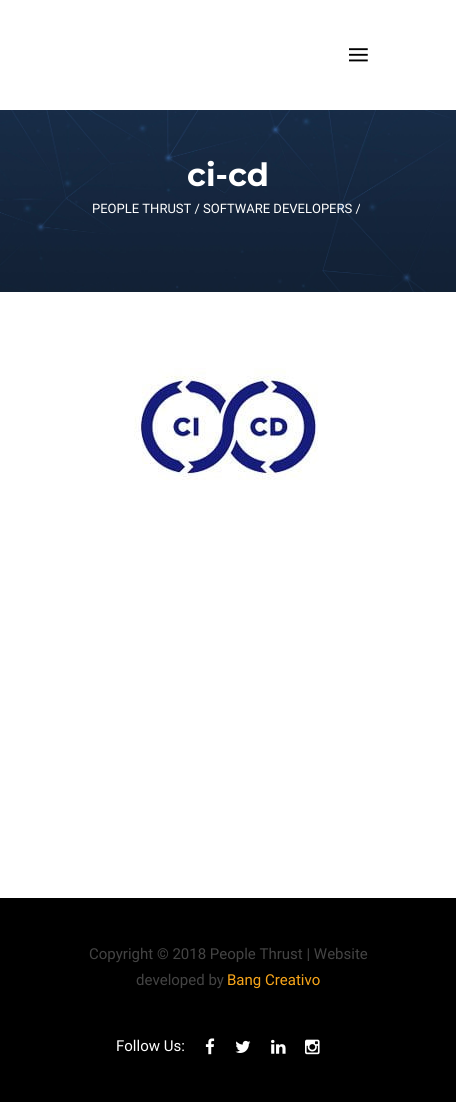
#include <cairo/cairo.h>
#include <math.h>
#include <stddef.h>

static cairo_t *cr;

static void rgb(unsigned color)
{
	cairo_set_source_rgb(cr, (color >> 16) / 255.0, (color >> 8 & 255) / 255.0, (color & 255) / 255.0);
}

static void image(const char *path, double x, double y, double w, double h)
{
	cairo_surface_t *image = cairo_image_surface_create_from_png(path);
	cairo_save(cr);
	cairo_set_source_surface(cr, image, x, y);
	cairo_rectangle(cr, x, y, w, h);
	cairo_fill(cr);
	cairo_restore(cr);
	cairo_surface_destroy(image);
}

int main(void) {
	cairo_surface_t *surface = cairo_image_surface_create(CAIRO_FORMAT_RGB24, 456, 1102);
	cr = cairo_create(surface);
	cairo_font_options_t *options = cairo_font_options_create();
	cairo_font_options_set_hint_metrics(options, CAIRO_HINT_METRICS_OFF);
	cairo_font_options_set_hint_style(options, CAIRO_HINT_STYLE_NONE);
	cairo_set_font_options(cr, options);
	cairo_set_miter_limit(cr, 4);
	rgb(0xffffff);
	cairo_paint(cr);
	image("img/1.png", 349, 48, 19, 14);
	image("img/2.png", 0, 110, 456, 182);
	image("img/3.png", 134, 368, 185, 112);
	rgb(0x000000);
	cairo_rectangle(cr, 0, 898, 456, 204);
	cairo_fill(cr);
	image("img/4.png", 205, 1038, 10, 17);
	image("img/5.png", 235, 1040, 16, 13);
	image("img/6.png", 271, 1039, 15, 15);
	image("img/7.png", 305, 1039, 15, 16);
	cairo_select_font_face(cr, "Montserrat", CAIRO_FONT_SLANT_NORMAL, CAIRO_FONT_WEIGHT_BOLD);
	cairo_set_font_size(cr, 32);
	rgb(0xffffff);
	cairo_move_to(cr, 187, 186);
	cairo_show_text(cr, "ci-cd");
	cairo_select_font_face(cr, "Roboto", CAIRO_FONT_SLANT_NORMAL, CAIRO_FONT_WEIGHT_NORMAL);
	cairo_set_font_size(cr, 13);
	cairo_move_to(cr, 92, 213);
	cairo_show_text(cr, "PEOPLE THRUST / SOFTWARE DEVELOPERS /");
	cairo_set_font_size(cr, 15);
	rgb(0x444444);
	cairo_move_to(cr, 89, 959);
	cairo_show_text(cr, "Copyright © 2018 People Thrust | Website");
	cairo_move_to(cr, 136, 985);
	cairo_show_text(cr, "developed by");
	rgb(0xf9a61a);
	cairo_move_to(cr, 227, 985);
	cairo_show_text(cr, "Bang Creativo");
	rgb(0xffffff);
	cairo_move_to(cr, 116, 1051);
	cairo_show_text(cr, "Follow Us:");
	cairo_surface_write_to_png(surface, "page.png");
	cairo_font_options_destroy(options);
	cairo_destroy(cr);
	cairo_surface_destroy(surface);
	return 0;
}
